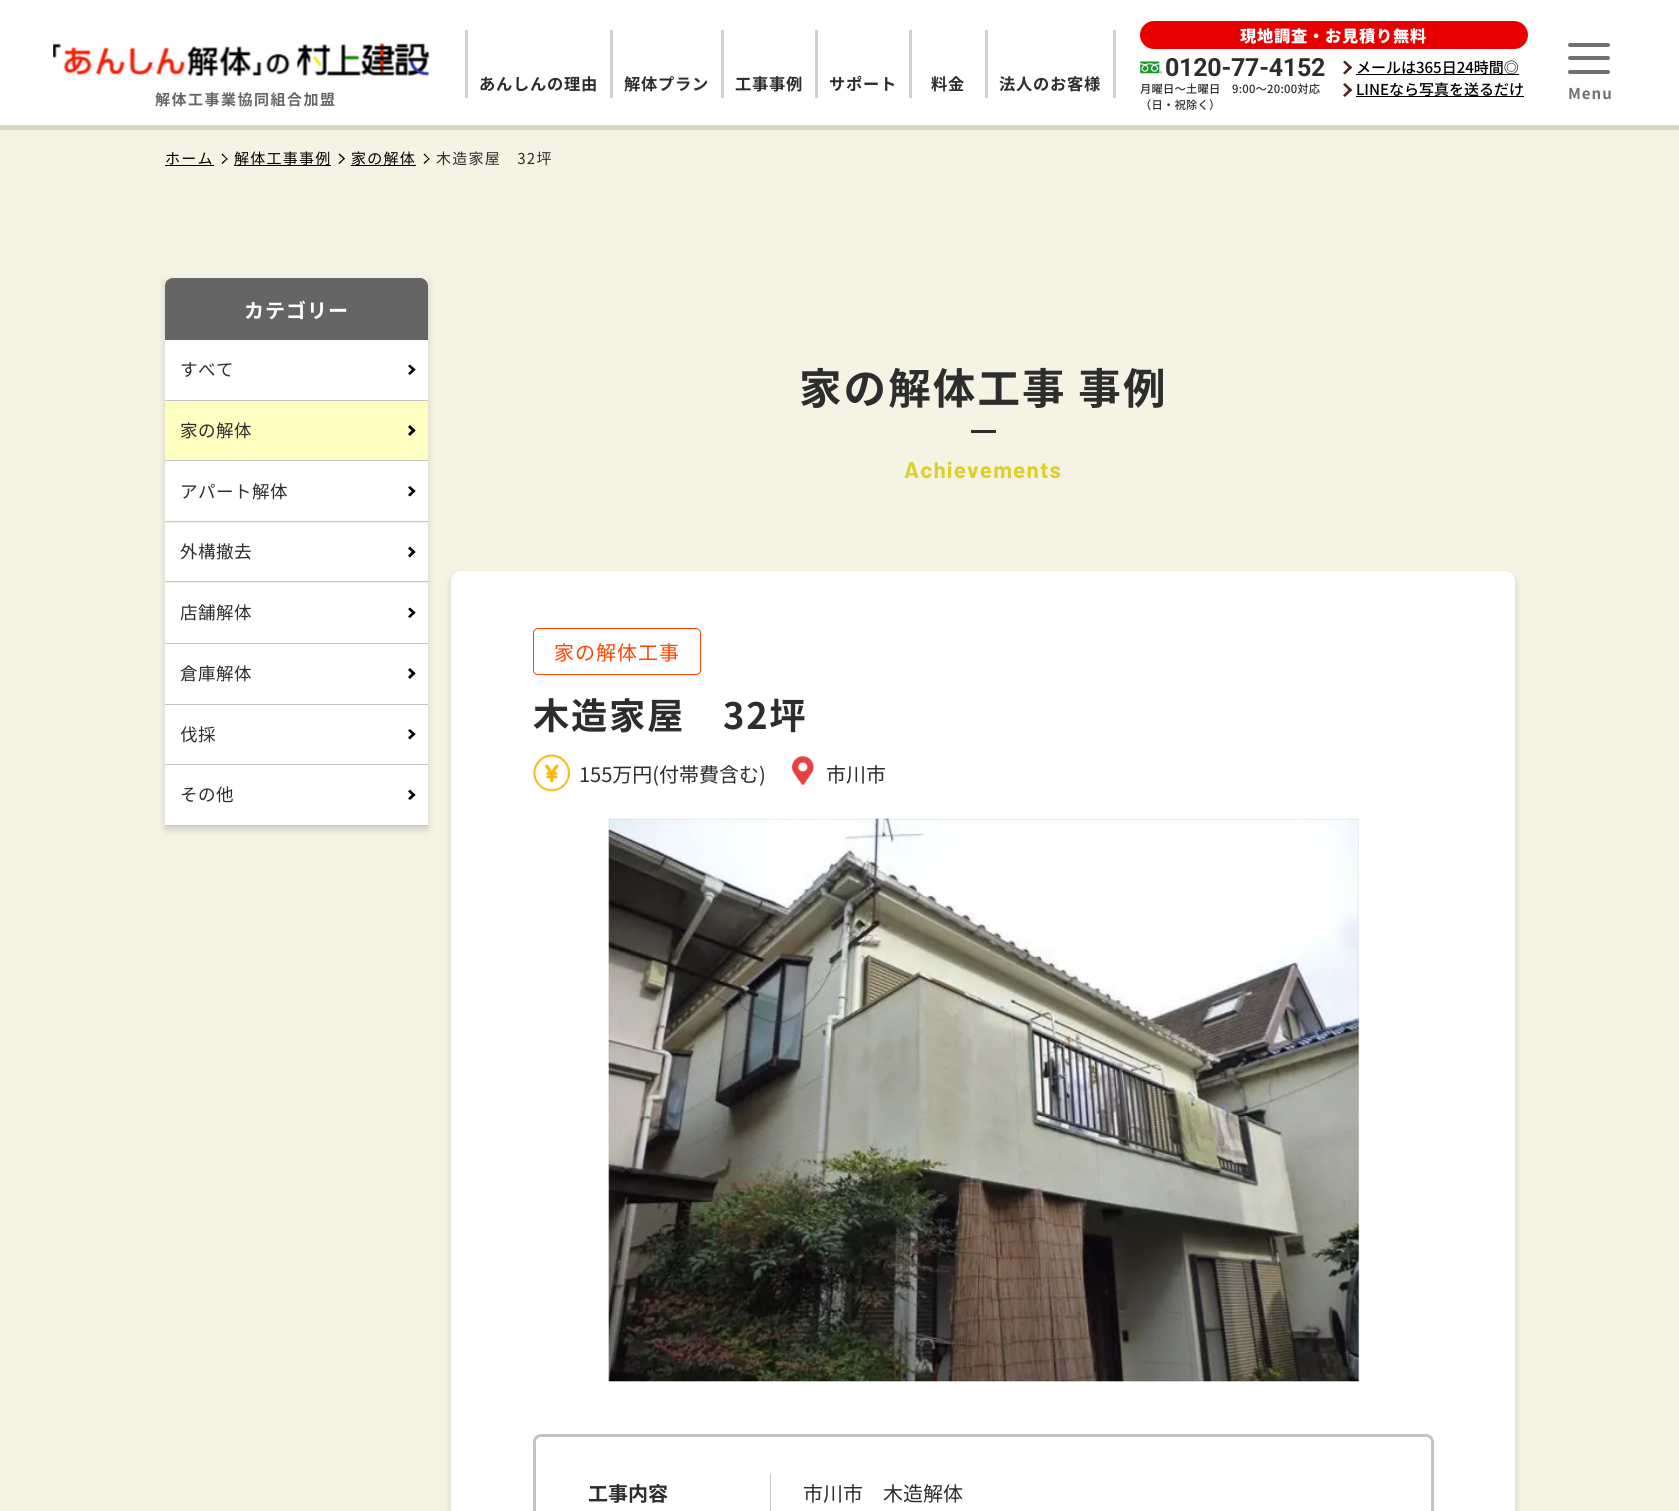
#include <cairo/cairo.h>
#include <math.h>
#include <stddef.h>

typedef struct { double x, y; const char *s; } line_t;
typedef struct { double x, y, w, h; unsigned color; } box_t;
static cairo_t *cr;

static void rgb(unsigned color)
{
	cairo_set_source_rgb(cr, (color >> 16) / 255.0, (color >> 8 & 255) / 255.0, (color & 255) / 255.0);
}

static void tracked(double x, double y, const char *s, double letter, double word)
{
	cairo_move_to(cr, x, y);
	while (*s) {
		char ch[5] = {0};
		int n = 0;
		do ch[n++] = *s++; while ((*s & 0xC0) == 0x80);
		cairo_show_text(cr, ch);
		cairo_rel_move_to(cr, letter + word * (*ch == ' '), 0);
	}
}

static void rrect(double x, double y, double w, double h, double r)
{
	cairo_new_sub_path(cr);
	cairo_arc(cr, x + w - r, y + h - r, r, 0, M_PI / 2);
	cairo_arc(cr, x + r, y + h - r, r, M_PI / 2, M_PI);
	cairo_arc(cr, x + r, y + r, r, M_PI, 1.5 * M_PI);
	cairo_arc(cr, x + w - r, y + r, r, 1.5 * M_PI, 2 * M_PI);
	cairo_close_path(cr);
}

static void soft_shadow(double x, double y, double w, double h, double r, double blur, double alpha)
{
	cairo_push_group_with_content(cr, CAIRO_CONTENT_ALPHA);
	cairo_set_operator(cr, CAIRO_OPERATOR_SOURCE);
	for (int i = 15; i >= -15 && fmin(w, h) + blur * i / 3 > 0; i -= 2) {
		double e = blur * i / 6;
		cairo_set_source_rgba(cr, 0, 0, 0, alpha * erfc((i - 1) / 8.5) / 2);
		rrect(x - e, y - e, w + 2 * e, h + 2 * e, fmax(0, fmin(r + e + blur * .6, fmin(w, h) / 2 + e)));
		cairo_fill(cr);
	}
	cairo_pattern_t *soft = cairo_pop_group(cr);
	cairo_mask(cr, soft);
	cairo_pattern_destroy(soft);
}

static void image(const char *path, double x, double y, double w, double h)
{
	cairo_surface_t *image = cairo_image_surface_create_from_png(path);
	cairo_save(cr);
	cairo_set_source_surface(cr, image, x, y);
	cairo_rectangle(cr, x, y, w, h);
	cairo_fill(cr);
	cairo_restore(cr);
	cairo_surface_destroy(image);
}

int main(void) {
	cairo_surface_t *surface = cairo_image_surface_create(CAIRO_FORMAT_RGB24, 1679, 1511);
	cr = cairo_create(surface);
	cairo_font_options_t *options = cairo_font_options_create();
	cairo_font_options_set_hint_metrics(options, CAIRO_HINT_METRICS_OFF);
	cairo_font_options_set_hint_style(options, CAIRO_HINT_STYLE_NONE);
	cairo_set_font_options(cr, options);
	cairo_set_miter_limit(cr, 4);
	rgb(0xf5f4e4);
	cairo_paint(cr);
	rgb(0xdbd4c1);
	cairo_rectangle(cr, 0, 125, 1679, 5);
	cairo_fill(cr);
	rgb(0xffffff);
	cairo_rectangle(cr, 0, 0, 1679, 125);
	cairo_fill(cr);
	image("img/1.png", 53, 43, 377, 34);
	rgb(0xe80000);
	rrect(1140, 21, 388, 28, 14);
	cairo_fill(cr);
	image("img/2.png", 1140, 61, 23, 13);
	rgb(0x4d2019);
	cairo_new_path(cr);
	cairo_move_to(cr, 1345, 60.5);
	cairo_line_to(cr, 1352, 67.5);
	cairo_line_to(cr, 1350.5, 69.5);
	cairo_line_to(cr, 1343, 62);
	cairo_close_path(cr);
	cairo_fill(cr);
	cairo_new_path(cr);
	cairo_move_to(cr, 1350.5, 65.5);
	cairo_line_to(cr, 1352, 67.5);
	cairo_line_to(cr, 1345, 74.5);
	cairo_line_to(cr, 1343, 73);
	cairo_close_path(cr);
	cairo_fill(cr);
	rgb(0x000000);
	cairo_rectangle(cr, 1356, 74, 163, 1);
	cairo_fill(cr);
	rgb(0x4d2019);
	cairo_new_path(cr);
	cairo_move_to(cr, 1345, 83);
	cairo_line_to(cr, 1352, 90);
	cairo_line_to(cr, 1350.5, 92);
	cairo_line_to(cr, 1343, 84.5);
	cairo_close_path(cr);
	cairo_fill(cr);
	cairo_new_path(cr);
	cairo_move_to(cr, 1350.5, 88);
	cairo_line_to(cr, 1352, 90);
	cairo_line_to(cr, 1345, 97);
	cairo_line_to(cr, 1343, 95.5);
	cairo_close_path(cr);
	cairo_fill(cr);
	{
		static const box_t items[] = {
			{1356, 96, 168, 1, 0x000000},
			{465, 30, 3, 68, 0xd1d1d1},
			{610, 30, 3, 68, 0xd1d1d1},
			{721, 30, 3, 68, 0xd1d1d1},
			{815, 30, 3, 68, 0xd1d1d1},
			{909, 30, 3, 68, 0xd1d1d1},
			{985, 30, 3, 68, 0xd1d1d1},
			{1113, 30, 3, 68, 0xd1d1d1},
		};
		for (size_t i = 0; i < sizeof items / sizeof *items; i++) {
			rgb(items[i].color);
			cairo_rectangle(cr, items[i].x, items[i].y, items[i].w, items[i].h);
			cairo_fill(cr);
		}
	}
	rgb(0x707070);
	rrect(1568, 43, 42, 4, 2);
	cairo_fill(cr);
	rrect(1568, 56, 42, 4, 2);
	cairo_fill(cr);
	rrect(1568, 70, 42, 4, 2);
	cairo_fill(cr);
	rgb(0x000000);
	cairo_rectangle(cr, 165, 165, 49, 1);
	cairo_fill(cr);
	cairo_new_path(cr);
	cairo_move_to(cr, 222.5, 153.5);
	cairo_line_to(cr, 227.5, 159);
	cairo_line_to(cr, 227, 159.5);
	cairo_line_to(cr, 221.5, 154.5);
	cairo_close_path(cr);
	cairo_fill(cr);
	cairo_new_path(cr);
	cairo_move_to(cr, 227, 158);
	cairo_line_to(cr, 227.5, 159);
	cairo_line_to(cr, 222.5, 164);
	cairo_line_to(cr, 221.5, 163);
	cairo_close_path(cr);
	cairo_fill(cr);
	cairo_rectangle(cr, 234, 165, 97, 1);
	cairo_fill(cr);
	cairo_new_path(cr);
	cairo_move_to(cr, 339.5, 153.5);
	cairo_line_to(cr, 345, 158.5);
	cairo_line_to(cr, 344, 159.5);
	cairo_line_to(cr, 338.5, 154.5);
	cairo_close_path(cr);
	cairo_fill(cr);
	cairo_new_path(cr);
	cairo_move_to(cr, 344, 158);
	cairo_line_to(cr, 345, 158.5);
	cairo_line_to(cr, 339.5, 164);
	cairo_line_to(cr, 338.5, 163);
	cairo_close_path(cr);
	cairo_fill(cr);
	cairo_rectangle(cr, 351, 165, 65, 1);
	cairo_fill(cr);
	cairo_new_path(cr);
	cairo_move_to(cr, 424.5, 153.5);
	cairo_line_to(cr, 429.5, 159);
	cairo_line_to(cr, 429, 159.5);
	cairo_line_to(cr, 423.5, 154.5);
	cairo_close_path(cr);
	cairo_fill(cr);
	cairo_new_path(cr);
	cairo_move_to(cr, 429, 158);
	cairo_line_to(cr, 429.5, 159);
	cairo_line_to(cr, 424.5, 164);
	cairo_line_to(cr, 423.5, 163);
	cairo_close_path(cr);
	cairo_fill(cr);
	cairo_save(cr);
	cairo_set_fill_rule(cr, CAIRO_FILL_RULE_EVEN_ODD);
	cairo_new_path(cr);
	cairo_move_to(cr, 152, 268);
	cairo_line_to(cr, 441, 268);
	cairo_line_to(cr, 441, 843);
	cairo_line_to(cr, 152, 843);
	cairo_close_path(cr);
	cairo_move_to(cr, 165, 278);
	cairo_line_to(cr, 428, 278);
	cairo_line_to(cr, 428, 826);
	cairo_line_to(cr, 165, 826);
	cairo_close_path(cr);
	cairo_clip(cr);
	rgb(0x000000);
	soft_shadow(165, 281, 263, 549, 0, 4, 0.16);
	cairo_restore(cr);
	rgb(0x656565);
	cairo_new_path(cr);
	cairo_move_to(cr, 173, 278);
	cairo_line_to(cr, 420, 278);
	cairo_curve_to(cr, 424.5, 278, 428, 281.5, 428, 286);
	cairo_line_to(cr, 428, 340);
	cairo_line_to(cr, 165, 340);
	cairo_line_to(cr, 165, 286);
	cairo_curve_to(cr, 165, 281.5, 168.5, 278, 173, 278);
	cairo_close_path(cr);
	cairo_fill(cr);
	rgb(0xc4c4c4);
	cairo_rectangle(cr, 165, 400, 263, 1);
	cairo_fill(cr);
	rgb(0xffffff);
	cairo_rectangle(cr, 165, 340, 263, 60);
	cairo_fill(cr);
	rgb(0x000000);
	cairo_new_path(cr);
	cairo_move_to(cr, 410, 364.5);
	cairo_line_to(cr, 415.5, 369.5);
	cairo_line_to(cr, 413.5, 371.5);
	cairo_line_to(cr, 408, 366);
	cairo_close_path(cr);
	cairo_fill(cr);
	cairo_new_path(cr);
	cairo_move_to(cr, 413.5, 368);
	cairo_line_to(cr, 415.5, 369.5);
	cairo_line_to(cr, 410, 375);
	cairo_line_to(cr, 408, 373.5);
	cairo_close_path(cr);
	cairo_fill(cr);
	rgb(0xc4c4c4);
	cairo_rectangle(cr, 165, 460, 263, 1);
	cairo_fill(cr);
	rgb(0xfdffbe);
	cairo_rectangle(cr, 165, 401, 263, 59);
	cairo_fill(cr);
	rgb(0x000000);
	cairo_new_path(cr);
	cairo_move_to(cr, 410, 425);
	cairo_line_to(cr, 415.5, 430.5);
	cairo_line_to(cr, 413.5, 432.5);
	cairo_line_to(cr, 408, 427);
	cairo_close_path(cr);
	cairo_fill(cr);
	cairo_new_path(cr);
	cairo_move_to(cr, 413.5, 428.5);
	cairo_line_to(cr, 415.5, 430.5);
	cairo_line_to(cr, 410, 436);
	cairo_line_to(cr, 408, 434);
	cairo_close_path(cr);
	cairo_fill(cr);
	rgb(0xc4c4c4);
	cairo_rectangle(cr, 165, 521, 263, 1);
	cairo_fill(cr);
	rgb(0xffffff);
	cairo_rectangle(cr, 165, 461, 263, 60);
	cairo_fill(cr);
	rgb(0x000000);
	cairo_new_path(cr);
	cairo_move_to(cr, 410, 486);
	cairo_line_to(cr, 415.5, 491);
	cairo_line_to(cr, 413.5, 493);
	cairo_line_to(cr, 408, 487.5);
	cairo_close_path(cr);
	cairo_fill(cr);
	cairo_new_path(cr);
	cairo_move_to(cr, 413.5, 489.5);
	cairo_line_to(cr, 415.5, 491);
	cairo_line_to(cr, 410, 496.5);
	cairo_line_to(cr, 408, 495);
	cairo_close_path(cr);
	cairo_fill(cr);
	rgb(0xc4c4c4);
	cairo_rectangle(cr, 165, 581, 263, 1);
	cairo_fill(cr);
	rgb(0xffffff);
	cairo_rectangle(cr, 165, 523, 263, 58);
	cairo_fill(cr);
	rgb(0x000000);
	cairo_new_path(cr);
	cairo_move_to(cr, 410, 546.5);
	cairo_line_to(cr, 415.5, 552);
	cairo_line_to(cr, 413.5, 553.5);
	cairo_line_to(cr, 408, 548.5);
	cairo_close_path(cr);
	cairo_fill(cr);
	cairo_new_path(cr);
	cairo_move_to(cr, 413.5, 550);
	cairo_line_to(cr, 415.5, 552);
	cairo_line_to(cr, 410, 557.5);
	cairo_line_to(cr, 408, 555.5);
	cairo_close_path(cr);
	cairo_fill(cr);
	rgb(0xc4c4c4);
	cairo_rectangle(cr, 165, 643, 263, 1);
	cairo_fill(cr);
	rgb(0xffffff);
	cairo_rectangle(cr, 165, 583, 263, 60);
	cairo_fill(cr);
	rgb(0x000000);
	cairo_new_path(cr);
	cairo_move_to(cr, 410, 607.5);
	cairo_line_to(cr, 415.5, 612.5);
	cairo_line_to(cr, 413.5, 614.5);
	cairo_line_to(cr, 408, 609);
	cairo_close_path(cr);
	cairo_fill(cr);
	cairo_new_path(cr);
	cairo_move_to(cr, 413.5, 611);
	cairo_line_to(cr, 415.5, 612.5);
	cairo_line_to(cr, 410, 618);
	cairo_line_to(cr, 408, 616.5);
	cairo_close_path(cr);
	cairo_fill(cr);
	rgb(0xc4c4c4);
	cairo_rectangle(cr, 165, 704, 263, 1);
	cairo_fill(cr);
	rgb(0xffffff);
	cairo_rectangle(cr, 165, 644, 263, 60);
	cairo_fill(cr);
	rgb(0x000000);
	cairo_new_path(cr);
	cairo_move_to(cr, 410, 668);
	cairo_line_to(cr, 415.5, 673.5);
	cairo_line_to(cr, 413.5, 675);
	cairo_line_to(cr, 408, 670);
	cairo_close_path(cr);
	cairo_fill(cr);
	cairo_new_path(cr);
	cairo_move_to(cr, 413.5, 671.5);
	cairo_line_to(cr, 415.5, 673.5);
	cairo_line_to(cr, 410, 679);
	cairo_line_to(cr, 408, 677);
	cairo_close_path(cr);
	cairo_fill(cr);
	rgb(0xc4c4c4);
	cairo_rectangle(cr, 165, 764, 263, 1);
	cairo_fill(cr);
	rgb(0xffffff);
	cairo_rectangle(cr, 165, 705, 263, 59);
	cairo_fill(cr);
	rgb(0x000000);
	cairo_new_path(cr);
	cairo_move_to(cr, 410, 729);
	cairo_line_to(cr, 415.5, 734);
	cairo_line_to(cr, 413.5, 736);
	cairo_line_to(cr, 408, 730.5);
	cairo_close_path(cr);
	cairo_fill(cr);
	cairo_new_path(cr);
	cairo_move_to(cr, 413.5, 732.5);
	cairo_line_to(cr, 415.5, 734);
	cairo_line_to(cr, 410, 739.5);
	cairo_line_to(cr, 408, 737.5);
	cairo_close_path(cr);
	cairo_fill(cr);
	rgb(0xc4c4c4);
	cairo_rectangle(cr, 165, 825, 263, 1);
	cairo_fill(cr);
	rgb(0xffffff);
	cairo_rectangle(cr, 165, 765, 263, 60);
	cairo_fill(cr);
	rgb(0x000000);
	cairo_new_path(cr);
	cairo_move_to(cr, 410, 789.5);
	cairo_line_to(cr, 415.5, 795);
	cairo_line_to(cr, 413.5, 796.5);
	cairo_line_to(cr, 408, 791.5);
	cairo_close_path(cr);
	cairo_fill(cr);
	cairo_new_path(cr);
	cairo_move_to(cr, 413.5, 793);
	cairo_line_to(cr, 415.5, 795);
	cairo_line_to(cr, 410, 800);
	cairo_line_to(cr, 408, 798.5);
	cairo_close_path(cr);
	cairo_fill(cr);
	rgb(0x2d2d2d);
	cairo_rectangle(cr, 971, 430, 25, 3);
	cairo_fill(cr);
	rgb(0x000000);
	soft_shadow(451, 575, 1064, 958, 10, 4, 0.16);
	rgb(0xffffff);
	rrect(451, 571, 1064, 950, 10);
	cairo_fill(cr);
	rrect(533.5, 628.5, 167, 46, 4.5);
	rgb(0xff4500);
	cairo_set_line_width(cr, 1);
	cairo_stroke(cr);
	image("img/3.png", 533, 754, 37, 38);
	image("img/4.png", 792, 756, 22, 29);
	image("img/5.png", 608, 818, 752, 564);
	rrect(534.5, 1435.5, 898, 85, 6.5);
	rgb(0xc4c4c4);
	cairo_set_line_width(cr, 3);
	cairo_stroke(cr);
	cairo_rectangle(cr, 770, 1474, 1, 37);
	cairo_fill(cr);
	cairo_select_font_face(cr, "Noto Sans JP Black", CAIRO_FONT_SLANT_NORMAL, CAIRO_FONT_WEIGHT_NORMAL);
	cairo_set_font_size(cr, 16.25);
	rgb(0xffffff);
	tracked(1240, 42, "現地調査・お見積り無料", 0.75, 0);
	cairo_select_font_face(cr, "Roboto", CAIRO_FONT_SLANT_NORMAL, CAIRO_FONT_WEIGHT_BOLD);
	cairo_set_font_size(cr, 25);
	rgb(0x2d2d2d);
	tracked(1165, 76, "0120-77-4152", -0.25, 0);
	cairo_select_font_face(cr, "Noto Sans JP Medium", CAIRO_FONT_SLANT_NORMAL, CAIRO_FONT_WEIGHT_NORMAL);
	cairo_set_font_size(cr, 11.25);
	tracked(1140, 93, "月曜日～土曜日　9:00～20:00対応", 0.25, 0);
	tracked(1140, 109, "（日・祝除く）", 0.25, 0);
	cairo_set_font_size(cr, 15);
	rgb(0x000000);
	cairo_move_to(cr, 1356, 73);
	cairo_show_text(cr, "メールは365日24時間◎");
	cairo_move_to(cr, 1356, 95);
	cairo_show_text(cr, "LINEなら写真を送るだけ");
	cairo_select_font_face(cr, "Noto Sans JP", CAIRO_FONT_SLANT_NORMAL, CAIRO_FONT_WEIGHT_BOLD);
	cairo_set_font_size(cr, 16.25);
	rgb(0x2d2d2d);
	{
		static const line_t items[] = {
			{479, 90, "あんしんの理由"},
			{624, 90, "解体プラン"},
			{735, 90, "工事事例"},
			{829, 90, "サポート"},
			{931, 90, "料金"},
			{999, 90, "法人のお客様"},
		};
		for (size_t i = 0; i < sizeof items / sizeof *items; i++) {
			tracked(items[i].x, items[i].y, items[i].s, 0.75, 0);
		}
	}
	cairo_set_font_size(cr, 15);
	rgb(0x666666);
	tracked(155, 105, "解体工事業協同組合加盟", 1.5, 0);
	rgb(0x707070);
	tracked(1568, 99, "Menu", 1, 0);
	cairo_select_font_face(cr, "Noto Sans JP", CAIRO_FONT_SLANT_NORMAL, CAIRO_FONT_WEIGHT_NORMAL);
	rgb(0x000000);
	{
		static const line_t items[] = {
			{165, 164, "ホーム"},
			{234, 164, "解体工事事例"},
			{351, 164, "家の解体"},
		};
		for (size_t i = 0; i < sizeof items / sizeof *items; i++) {
			tracked(items[i].x, items[i].y, items[i].s, 1.25, 0);
		}
	}
	rgb(0x2d2d2d);
	tracked(436, 164, "木造家屋　32坪", 1.25, 0);
	cairo_select_font_face(cr, "Noto Sans JP", CAIRO_FONT_SLANT_NORMAL, CAIRO_FONT_WEIGHT_BOLD);
	cairo_set_font_size(cr, 20);
	rgb(0xffffff);
	tracked(244, 318, "カテゴリー", 1, 0);
	cairo_select_font_face(cr, "Noto Sans JP", CAIRO_FONT_SLANT_NORMAL, CAIRO_FONT_WEIGHT_NORMAL);
	cairo_set_font_size(cr, 17.5);
	rgb(0x2d2d2d);
	{
		static const line_t items[] = {
			{180, 376, "すべて"},
			{180, 437, "家の解体"},
			{180, 498, "アパート解体"},
			{180, 558, "外構撤去"},
			{180, 619, "店舗解体"},
			{180, 680, "倉庫解体"},
			{180, 741, "伐採"},
			{180, 801, "その他"},
		};
		for (size_t i = 0; i < sizeof items / sizeof *items; i++) {
			tracked(items[i].x, items[i].y, items[i].s, 0.5, 0);
		}
	}
	cairo_select_font_face(cr, "Noto Sans JP", CAIRO_FONT_SLANT_NORMAL, CAIRO_FONT_WEIGHT_BOLD);
	cairo_set_font_size(cr, 42.5);
	tracked(799, 404, "家の解体工事 事例", 2.1, 0);
	cairo_select_font_face(cr, "Barlow", CAIRO_FONT_SLANT_NORMAL, CAIRO_FONT_WEIGHT_BOLD);
	cairo_set_font_size(cr, 22.5);
	rgb(0xdbd02c);
	tracked(904, 478, "Achievements", 1.1, 0);
	cairo_select_font_face(cr, "Noto Sans JP", CAIRO_FONT_SLANT_NORMAL, CAIRO_FONT_WEIGHT_NORMAL);
	cairo_set_font_size(cr, 20);
	rgb(0xff4500);
	tracked(554, 660, "家の解体工事", 1, 0);
	cairo_select_font_face(cr, "Noto Sans JP", CAIRO_FONT_SLANT_NORMAL, CAIRO_FONT_WEIGHT_BOLD);
	cairo_set_font_size(cr, 36.25);
	rgb(0x2d2d2d);
	tracked(533, 729, "木造家屋　32坪", 1.75, 0);
	cairo_select_font_face(cr, "Noto Sans JP", CAIRO_FONT_SLANT_NORMAL, CAIRO_FONT_WEIGHT_NORMAL);
	cairo_set_font_size(cr, 20);
	cairo_move_to(cr, 579, 782);
	cairo_show_text(cr, "155万円(付帯費含む)");
	cairo_move_to(cr, 826, 782);
	cairo_show_text(cr, "市川市");
	cairo_select_font_face(cr, "Noto Sans JP", CAIRO_FONT_SLANT_NORMAL, CAIRO_FONT_WEIGHT_BOLD);
	cairo_move_to(cr, 588, 1501);
	cairo_show_text(cr, "工事内容");
	cairo_select_font_face(cr, "Noto Sans JP", CAIRO_FONT_SLANT_NORMAL, CAIRO_FONT_WEIGHT_NORMAL);
	cairo_move_to(cr, 803, 1501);
	cairo_show_text(cr, "市川市　木造解体");
	cairo_surface_write_to_png(surface, "page.png");
	cairo_font_options_destroy(options);
	cairo_destroy(cr);
	cairo_surface_destroy(surface);
	return 0;
}
